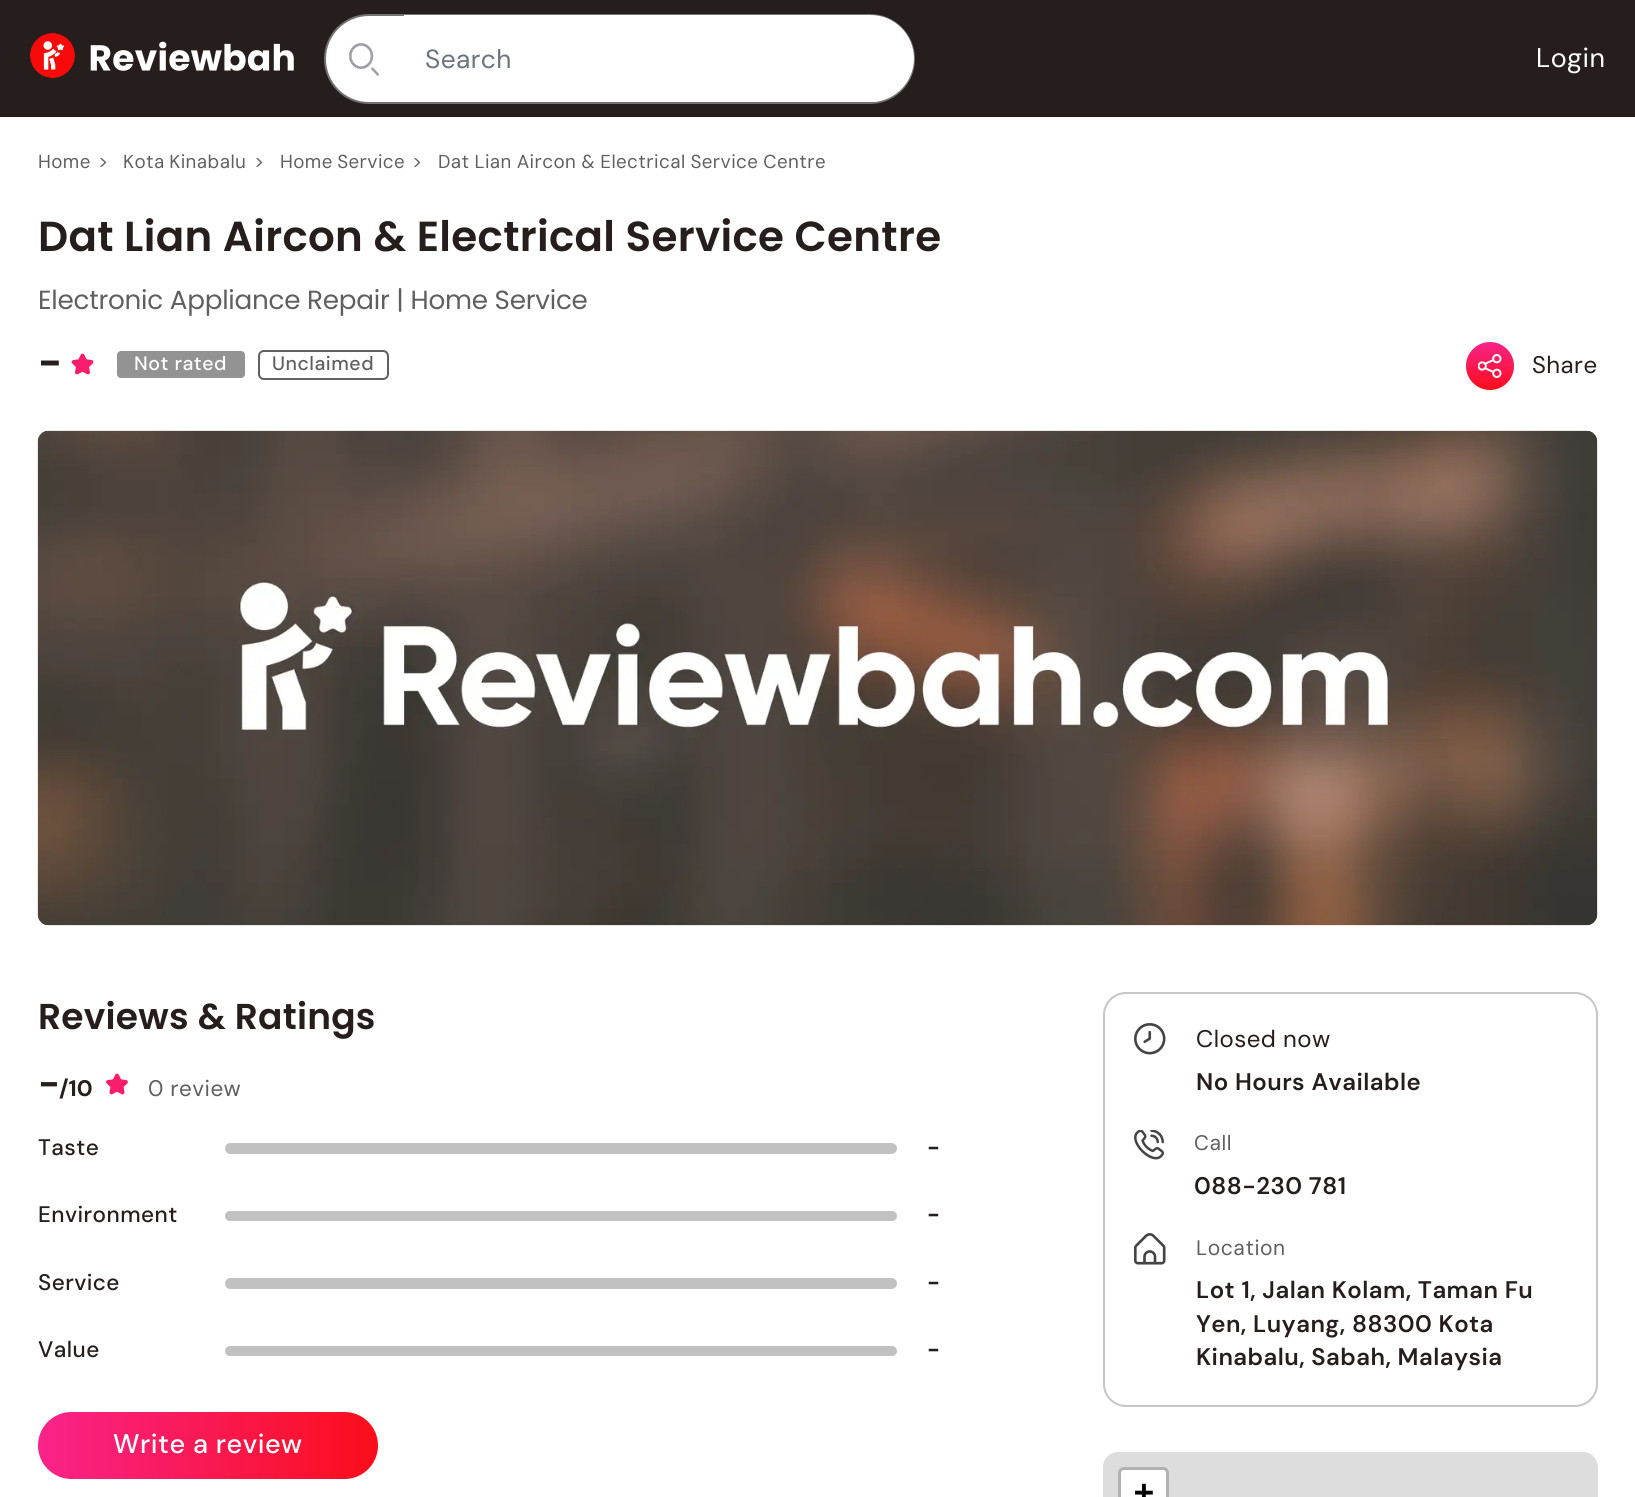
#include <cairo/cairo.h>
#include <math.h>
#include <stddef.h>

typedef struct { double x, y; const char *s; } line_t;
static cairo_t *cr;

static void rgb(unsigned color)
{
	cairo_set_source_rgb(cr, (color >> 16) / 255.0, (color >> 8 & 255) / 255.0, (color & 255) / 255.0);
}

static void tracked(double x, double y, const char *s, double letter, double word)
{
	cairo_move_to(cr, x, y);
	while (*s) {
		char ch[5] = {0};
		int n = 0;
		do ch[n++] = *s++; while ((*s & 0xC0) == 0x80);
		cairo_show_text(cr, ch);
		cairo_rel_move_to(cr, letter + word * (*ch == ' '), 0);
	}
}

static void rrect(double x, double y, double w, double h, double r)
{
	cairo_new_sub_path(cr);
	cairo_arc(cr, x + w - r, y + h - r, r, 0, M_PI / 2);
	cairo_arc(cr, x + r, y + h - r, r, M_PI / 2, M_PI);
	cairo_arc(cr, x + r, y + r, r, M_PI, 1.5 * M_PI);
	cairo_arc(cr, x + w - r, y + r, r, 1.5 * M_PI, 2 * M_PI);
	cairo_close_path(cr);
}

static void image(const char *path, double x, double y, double w, double h)
{
	cairo_surface_t *image = cairo_image_surface_create_from_png(path);
	cairo_save(cr);
	cairo_set_source_surface(cr, image, x, y);
	cairo_rectangle(cr, x, y, w, h);
	cairo_fill(cr);
	cairo_restore(cr);
	cairo_surface_destroy(image);
}

int main(void) {
	cairo_surface_t *surface = cairo_image_surface_create(CAIRO_FORMAT_RGB24, 1635, 1497);
	cr = cairo_create(surface);
	cairo_font_options_t *options = cairo_font_options_create();
	cairo_font_options_set_hint_metrics(options, CAIRO_HINT_METRICS_OFF);
	cairo_font_options_set_hint_style(options, CAIRO_HINT_STYLE_NONE);
	cairo_set_font_options(cr, options);
	cairo_set_miter_limit(cr, 4);
	cairo_pattern_t *gradient;
	rgb(0xffffff);
	cairo_paint(cr);
	rgb(0x261e1c);
	cairo_rectangle(cr, 0, 0, 1635, 117);
	cairo_fill(cr);
	image("img/1.png", 30, 33, 264, 45);
	rgb(0xffffff);
	rrect(325, 15, 589, 88, 44);
	cairo_fill_preserve(cr);
	rgb(0x737373);
	cairo_stroke(cr);
	image("img/2.png", 349, 43, 30, 33);
	rgb(0xffffff);
	cairo_new_path(cr);
	cairo_move_to(cr, 404, 15);
	cairo_line_to(cr, 870.5, 15);
	cairo_curve_to(cr, 894.5, 15, 914, 34.5, 914, 58.5);
	cairo_curve_to(cr, 914, 82.5, 894.5, 102, 870.5, 102);
	cairo_line_to(cr, 404, 102);
	cairo_close_path(cr);
	cairo_fill(cr);
	image("img/3.png", 71, 353, 23, 22);
	rgb(0x939393);
	rrect(117, 351, 128, 27, 4);
	cairo_fill(cr);
	rrect(259, 351, 129, 28, 5);
	rgb(0x606060);
	cairo_stroke(cr);
	gradient = cairo_pattern_create_linear(1490, 390, 1490, 342);
	cairo_pattern_add_color_stop_rgba(gradient, 0, 0.98, 0.055, 0.102, 1);
	cairo_pattern_add_color_stop_rgba(gradient, 1, 0.976, 0.137, 0.541, 1);
	cairo_set_source(cr, gradient);
	cairo_pattern_destroy(gradient);
	cairo_arc(cr, 1490, 366, 24, 0, 2 * M_PI);
	cairo_fill(cr);
	image("img/4.png", 1478, 354, 24, 24);
	image("img/5.png", 37, 430, 1561, 496);
	image("img/6.png", 106, 1073, 22, 22);
	rgb(0xc1c1c1);
	rrect(225, 1143, 672, 11, 5.5);
	cairo_fill(cr);
	rrect(225, 1211, 672, 10, 5);
	cairo_fill(cr);
	rrect(225, 1278, 672, 11, 5.5);
	cairo_fill(cr);
	rrect(225, 1346, 672, 10, 5);
	cairo_fill(cr);
	gradient = cairo_pattern_create_linear(378, 1445, 38, 1445);
	cairo_pattern_add_color_stop_rgba(gradient, 0, 0.98, 0.055, 0.102, 1);
	cairo_pattern_add_color_stop_rgba(gradient, 1, 0.976, 0.137, 0.541, 1);
	cairo_set_source(cr, gradient);
	cairo_pattern_destroy(gradient);
	rrect(38, 1412, 340, 67, 33.5);
	cairo_fill(cr);
	rrect(1104, 993, 493, 413, 22);
	rgb(0xc6c6c6);
	cairo_stroke(cr);
	image("img/7.png", 1134, 1023, 32, 32);
	image("img/8.png", 1134, 1130, 30, 30);
	image("img/9.png", 1134, 1233, 32, 32);
	rgb(0xdddddd);
	rrect(1103, 1452, 495, 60, 15);
	cairo_fill(cr);
	rrect(1119.5, 1468.5, 48, 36, 4.5);
	rgb(0xb1b1b1);
	cairo_set_line_width(cr, 3);
	cairo_stroke(cr);
	rgb(0xffffff);
	cairo_new_path(cr);
	cairo_move_to(cr, 1124, 1470);
	cairo_line_to(cr, 1163, 1470);
	cairo_curve_to(cr, 1164.5, 1470, 1166, 1471.5, 1166, 1473);
	cairo_line_to(cr, 1166, 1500);
	cairo_line_to(cr, 1121, 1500);
	cairo_line_to(cr, 1121, 1473);
	cairo_curve_to(cr, 1121, 1471.5, 1122.5, 1470, 1124, 1470);
	cairo_close_path(cr);
	cairo_fill(cr);
	cairo_select_font_face(cr, "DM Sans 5", CAIRO_FONT_SLANT_NORMAL, CAIRO_FONT_WEIGHT_NORMAL);
	cairo_set_font_size(cr, 26.25);
	rgb(0x6b7280);
	tracked(425, 68, "Search", 0.45, 0);
	cairo_select_font_face(cr, "DM Sans", CAIRO_FONT_SLANT_NORMAL, CAIRO_FONT_WEIGHT_NORMAL);
	cairo_set_font_size(cr, 27);
	rgb(0xffffff);
	tracked(1536, 67, "Login", 0.45, 0);
	cairo_select_font_face(cr, "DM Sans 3", CAIRO_FONT_SLANT_NORMAL, CAIRO_FONT_WEIGHT_NORMAL);
	cairo_set_font_size(cr, 18.75);
	rgb(0x5f5f5f);
	tracked(38, 168, "Home", 0.4, 0);
	tracked(98, 168, ">", 0.4, 0);
	tracked(123, 168, "Kota Kinabalu", 0.4, -1);
	tracked(254, 168, ">", 0.4, 0);
	tracked(280, 168, "Home Service", 0.4, -1);
	tracked(412, 168, ">", 0.4, 0);
	tracked(438, 168, "Dat Lian Aircon & Electrical Service Centre", 0.4, -0.5);
	cairo_select_font_face(cr, "Poppins SemiBold", CAIRO_FONT_SLANT_NORMAL, CAIRO_FONT_WEIGHT_NORMAL);
	cairo_set_font_size(cr, 42);
	rgb(0x261e1c);
	tracked(38, 251, "Dat Lian Aircon & Electrical Service Centre", 0.3, 0);
	cairo_select_font_face(cr, "Poppins", CAIRO_FONT_SLANT_NORMAL, CAIRO_FONT_WEIGHT_NORMAL);
	cairo_set_font_size(cr, 26.25);
	rgb(0x5f5f5f);
	tracked(38, 309, "Electronic Appliance Repair | Home Service", -0.25, 0);
	cairo_select_font_face(cr, "Poppins SemiBold", CAIRO_FONT_SLANT_NORMAL, CAIRO_FONT_WEIGHT_NORMAL);
	cairo_set_font_size(cr, 42);
	rgb(0x261e1c);
	tracked(38, 378, "-", 0.3, 0);
	cairo_select_font_face(cr, "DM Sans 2 Medium", CAIRO_FONT_SLANT_NORMAL, CAIRO_FONT_WEIGHT_NORMAL);
	cairo_set_font_size(cr, 19.5);
	rgb(0xffffff);
	tracked(134, 370, "Not rated", 0.5, 0);
	rgb(0x5f5f5f);
	tracked(272, 370, "Unclaimed", 0.5, 0);
	cairo_select_font_face(cr, "DM Sans 2", CAIRO_FONT_SLANT_NORMAL, CAIRO_FONT_WEIGHT_NORMAL);
	cairo_set_font_size(cr, 24);
	rgb(0x261e1c);
	tracked(1532, 373, "Share", 0.45, 0);
	cairo_select_font_face(cr, "Poppins SemiBold", CAIRO_FONT_SLANT_NORMAL, CAIRO_FONT_WEIGHT_NORMAL);
	cairo_set_font_size(cr, 36);
	tracked(38, 1029, "Reviews & Ratings", 0.25, 0);
	cairo_select_font_face(cr, "DM Sans", CAIRO_FONT_SLANT_NORMAL, CAIRO_FONT_WEIGHT_BOLD);
	cairo_set_font_size(cr, 38);
	cairo_move_to(cr, 38, 1096);
	cairo_show_text(cr, "-");
	cairo_select_font_face(cr, "DM Sans 2", CAIRO_FONT_SLANT_NORMAL, CAIRO_FONT_WEIGHT_BOLD);
	cairo_set_font_size(cr, 22.5);
	cairo_move_to(cr, 59, 1096);
	cairo_show_text(cr, "/10");
	cairo_select_font_face(cr, "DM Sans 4", CAIRO_FONT_SLANT_NORMAL, CAIRO_FONT_WEIGHT_NORMAL);
	rgb(0x5f5f5f);
	tracked(148, 1096, "0 review", 0.45, 0);
	cairo_select_font_face(cr, "DM Sans Medium", CAIRO_FONT_SLANT_NORMAL, CAIRO_FONT_WEIGHT_NORMAL);
	rgb(0x261e1c);
	tracked(38, 1155, "Taste", 0.45, 0);
	cairo_select_font_face(cr, "DM Sans", CAIRO_FONT_SLANT_NORMAL, CAIRO_FONT_WEIGHT_BOLD);
	tracked(927, 1155, "-", 0.45, 0);
	cairo_select_font_face(cr, "DM Sans Medium", CAIRO_FONT_SLANT_NORMAL, CAIRO_FONT_WEIGHT_NORMAL);
	tracked(38, 1222, "Environment", 0.45, 0);
	cairo_select_font_face(cr, "DM Sans", CAIRO_FONT_SLANT_NORMAL, CAIRO_FONT_WEIGHT_BOLD);
	tracked(927, 1222, "-", 0.45, 0);
	cairo_select_font_face(cr, "DM Sans Medium", CAIRO_FONT_SLANT_NORMAL, CAIRO_FONT_WEIGHT_NORMAL);
	tracked(38, 1290, "Service", 0.45, 0);
	cairo_select_font_face(cr, "DM Sans", CAIRO_FONT_SLANT_NORMAL, CAIRO_FONT_WEIGHT_BOLD);
	tracked(927, 1290, "-", 0.45, 0);
	cairo_select_font_face(cr, "DM Sans Medium", CAIRO_FONT_SLANT_NORMAL, CAIRO_FONT_WEIGHT_NORMAL);
	tracked(38, 1357, "Value", 0.45, 0);
	cairo_select_font_face(cr, "DM Sans", CAIRO_FONT_SLANT_NORMAL, CAIRO_FONT_WEIGHT_BOLD);
	tracked(927, 1357, "-", 0.45, 0);
	cairo_select_font_face(cr, "DM Sans 3 Medium", CAIRO_FONT_SLANT_NORMAL, CAIRO_FONT_WEIGHT_NORMAL);
	cairo_set_font_size(cr, 27);
	rgb(0xffffff);
	tracked(113, 1453, "Write a review", 0.5, 0);
	cairo_select_font_face(cr, "DM Sans 2", CAIRO_FONT_SLANT_NORMAL, CAIRO_FONT_WEIGHT_NORMAL);
	cairo_set_font_size(cr, 24);
	rgb(0x261e1c);
	tracked(1196, 1047, "Closed now", 0.45, 0);
	cairo_select_font_face(cr, "DM Sans SemiBold", CAIRO_FONT_SLANT_NORMAL, CAIRO_FONT_WEIGHT_NORMAL);
	tracked(1196, 1090, "No Hours Available", 0.45, 0);
	cairo_select_font_face(cr, "DM Sans 3", CAIRO_FONT_SLANT_NORMAL, CAIRO_FONT_WEIGHT_NORMAL);
	cairo_set_font_size(cr, 21);
	rgb(0x5f5f5f);
	tracked(1194, 1150, "Call", 0.5, 0);
	cairo_select_font_face(cr, "DM Sans SemiBold", CAIRO_FONT_SLANT_NORMAL, CAIRO_FONT_WEIGHT_NORMAL);
	cairo_set_font_size(cr, 24);
	rgb(0x261e1c);
	tracked(1194, 1194, "088-230 781", 0.45, 0);
	cairo_select_font_face(cr, "DM Sans 3", CAIRO_FONT_SLANT_NORMAL, CAIRO_FONT_WEIGHT_NORMAL);
	cairo_set_font_size(cr, 21);
	rgb(0x5f5f5f);
	tracked(1196, 1255, "Location", 0.5, 0);
	cairo_select_font_face(cr, "DM Sans SemiBold", CAIRO_FONT_SLANT_NORMAL, CAIRO_FONT_WEIGHT_NORMAL);
	cairo_set_font_size(cr, 24);
	rgb(0x261e1c);
	{
		static const line_t items[] = {
			{1196, 1298, "Lot 1, Jalan Kolam, Taman Fu"},
			{1196, 1332, "Yen, Luyang, 88300 Kota"},
			{1196, 1365, "Kinabalu, Sabah, Malaysia"},
		};
		for (size_t i = 0; i < sizeof items / sizeof *items; i++) {
			tracked(items[i].x, items[i].y, items[i].s, 0.45, 0);
		}
	}
	cairo_select_font_face(cr, "DejaVu Sans Mono", CAIRO_FONT_SLANT_NORMAL, CAIRO_FONT_WEIGHT_BOLD);
	cairo_set_font_size(cr, 33);
	rgb(0x000000);
	tracked(1134, 1503, "+", 0.45, 0);
	cairo_surface_write_to_png(surface, "page.png");
	cairo_font_options_destroy(options);
	cairo_destroy(cr);
	cairo_surface_destroy(surface);
	return 0;
}
